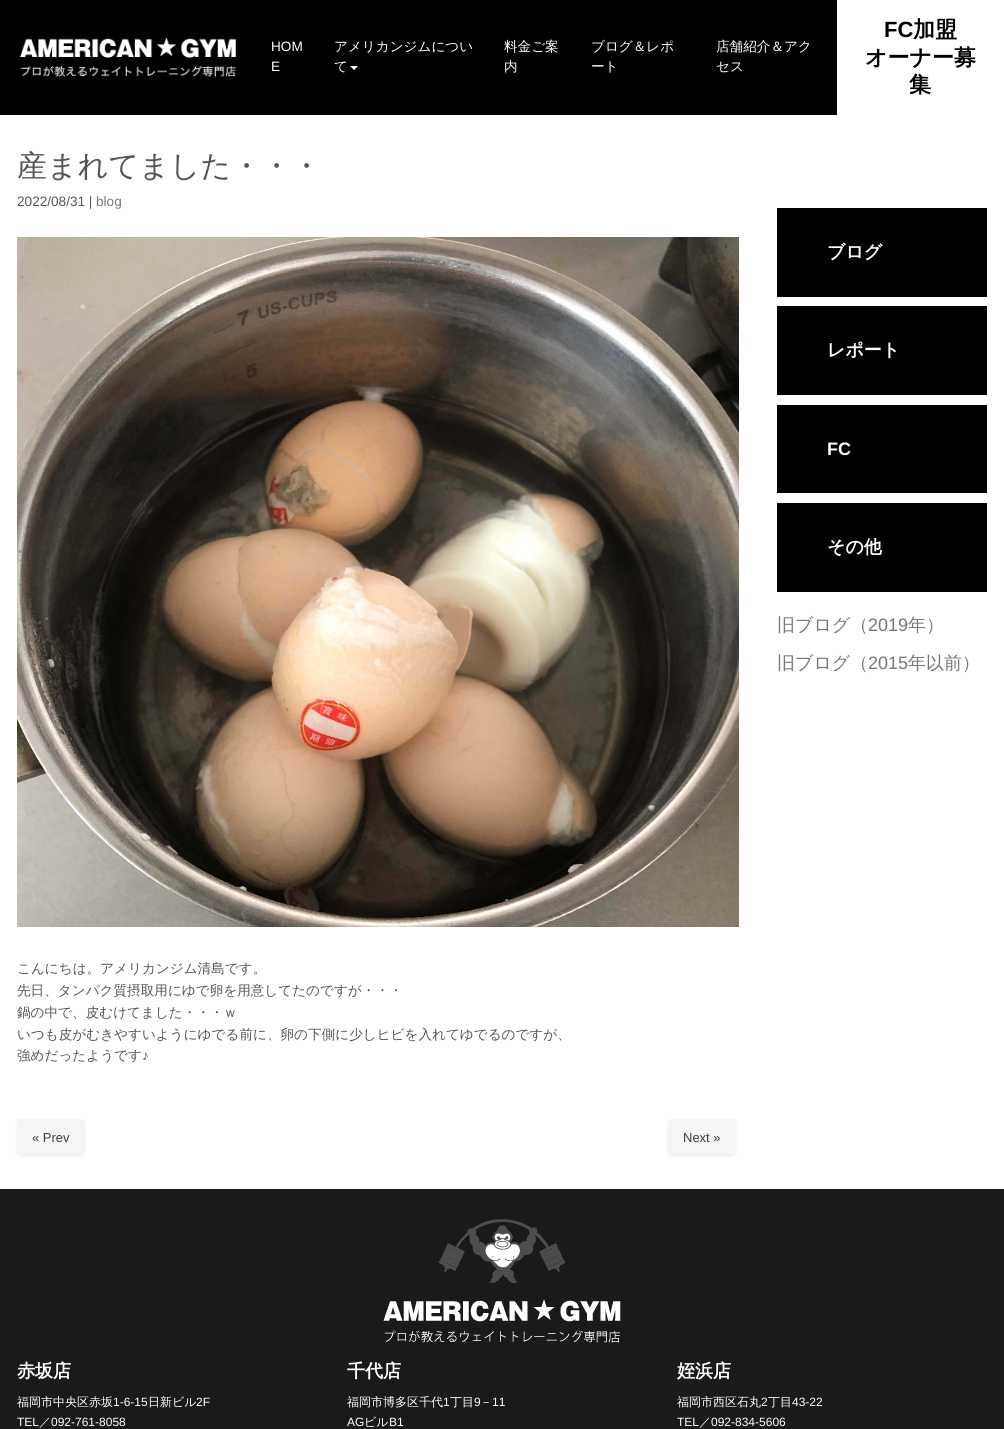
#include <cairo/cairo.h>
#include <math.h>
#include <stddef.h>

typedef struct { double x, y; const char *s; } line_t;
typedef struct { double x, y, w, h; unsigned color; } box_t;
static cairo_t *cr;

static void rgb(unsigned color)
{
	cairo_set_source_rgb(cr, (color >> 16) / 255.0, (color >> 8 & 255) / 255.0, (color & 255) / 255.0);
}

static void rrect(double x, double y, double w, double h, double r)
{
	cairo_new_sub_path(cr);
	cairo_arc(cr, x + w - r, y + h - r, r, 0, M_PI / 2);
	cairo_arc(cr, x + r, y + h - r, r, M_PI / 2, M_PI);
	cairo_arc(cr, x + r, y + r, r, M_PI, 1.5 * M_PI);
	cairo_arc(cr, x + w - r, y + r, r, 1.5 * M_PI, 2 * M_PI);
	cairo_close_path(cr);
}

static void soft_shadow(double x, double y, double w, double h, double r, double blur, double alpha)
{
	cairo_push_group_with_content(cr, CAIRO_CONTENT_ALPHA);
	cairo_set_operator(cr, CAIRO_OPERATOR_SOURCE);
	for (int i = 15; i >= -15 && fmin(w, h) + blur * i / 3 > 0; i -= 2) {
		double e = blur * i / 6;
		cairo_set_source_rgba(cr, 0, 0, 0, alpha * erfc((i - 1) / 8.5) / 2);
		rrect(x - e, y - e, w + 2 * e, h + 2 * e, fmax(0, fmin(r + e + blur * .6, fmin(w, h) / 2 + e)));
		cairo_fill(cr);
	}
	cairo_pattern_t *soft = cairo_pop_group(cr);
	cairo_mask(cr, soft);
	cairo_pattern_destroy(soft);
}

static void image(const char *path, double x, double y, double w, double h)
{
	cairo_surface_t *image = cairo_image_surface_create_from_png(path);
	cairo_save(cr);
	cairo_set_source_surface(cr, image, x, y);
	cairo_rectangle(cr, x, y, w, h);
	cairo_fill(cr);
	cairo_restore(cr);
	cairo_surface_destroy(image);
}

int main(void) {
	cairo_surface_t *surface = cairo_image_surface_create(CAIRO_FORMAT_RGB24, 1004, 1429);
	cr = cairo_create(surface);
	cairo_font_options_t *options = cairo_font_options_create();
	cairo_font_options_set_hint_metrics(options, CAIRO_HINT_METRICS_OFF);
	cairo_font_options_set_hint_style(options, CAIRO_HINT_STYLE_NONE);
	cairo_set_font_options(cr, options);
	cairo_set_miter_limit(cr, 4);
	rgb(0xffffff);
	cairo_paint(cr);
	rgb(0x000000);
	cairo_rectangle(cr, 0, 0, 837, 115);
	cairo_fill(cr);
	image("img/1.png", 20, 37, 216, 40);
	rgb(0xffffff);
	cairo_new_path(cr);
	cairo_move_to(cr, 350, 66);
	cairo_line_to(cr, 358, 66);
	cairo_line_to(cr, 354, 70);
	cairo_close_path(cr);
	cairo_fill(cr);
	image("img/2.png", 17, 237, 722, 690);
	rgb(0x323232);
	soft_shadow(17, 1120, 68, 36, 4, 1, 0.1);
	rgb(0xf5f5f5);
	rrect(17, 1119, 68, 36, 4);
	cairo_fill(cr);
	rgb(0x323232);
	soft_shadow(668, 1120, 68, 36, 4, 1, 0.1);
	rgb(0xf5f5f5);
	rrect(668, 1119, 68, 36, 4);
	cairo_fill(cr);
	{
		static const box_t items[] = {
			{777, 208, 210, 89, 0x000000},
			{777, 306, 210, 89, 0x000000},
			{777, 405, 210, 88, 0x000000},
			{777, 503, 210, 89, 0x000000},
			{0, 1189, 1004, 240, 0x1a1a1a},
		};
		for (size_t i = 0; i < sizeof items / sizeof *items; i++) {
			rgb(items[i].color);
			cairo_rectangle(cr, items[i].x, items[i].y, items[i].w, items[i].h);
			cairo_fill(cr);
		}
	}
	image("img/3.png", 383, 1219, 238, 124);
	cairo_select_font_face(cr, "Liberation Sans", CAIRO_FONT_SLANT_NORMAL, CAIRO_FONT_WEIGHT_NORMAL);
	cairo_set_font_size(cr, 13.6);
	rgb(0xffffff);
	cairo_move_to(cr, 271, 51);
	cairo_show_text(cr, "HOM");
	cairo_move_to(cr, 271, 71);
	cairo_show_text(cr, "E");
	cairo_select_font_face(cr, "WenQuanYi Zen Hei Medium", CAIRO_FONT_SLANT_NORMAL, CAIRO_FONT_WEIGHT_NORMAL);
	{
		static const line_t items[] = {
			{334, 51, "アメリカンジムについ"},
			{334, 71, "て"},
			{504, 51, "料金ご案"},
			{504, 71, "内"},
			{591, 51, "ブログ＆レポ"},
			{591, 71, "ート"},
			{716, 51, "店舗紹介＆アク"},
			{716, 71, "セス"},
		};
		for (size_t i = 0; i < sizeof items / sizeof *items; i++) {
			cairo_move_to(cr, items[i].x, items[i].y);
			cairo_show_text(cr, items[i].s);
		}
	}
	cairo_select_font_face(cr, "Liberation Sans", CAIRO_FONT_SLANT_NORMAL, CAIRO_FONT_WEIGHT_BOLD);
	cairo_set_font_size(cr, 22);
	rgb(0x000000);
	cairo_move_to(cr, 884, 37);
	cairo_show_text(cr, "FC");
	cairo_select_font_face(cr, "WenQuanYi Zen Hei", CAIRO_FONT_SLANT_NORMAL, CAIRO_FONT_WEIGHT_BOLD);
	{
		static const line_t items[] = {
			{913, 37, "加盟"},
			{865, 65, "オーナー募"},
			{909, 92, "集"},
		};
		for (size_t i = 0; i < sizeof items / sizeof *items; i++) {
			cairo_move_to(cr, items[i].x, items[i].y);
			cairo_show_text(cr, items[i].s);
		}
	}
	cairo_select_font_face(cr, "WenQuanYi Zen Hei Medium", CAIRO_FONT_SLANT_NORMAL, CAIRO_FONT_WEIGHT_NORMAL);
	cairo_set_font_size(cr, 30);
	rgb(0x555555);
	cairo_move_to(cr, 17, 176);
	cairo_show_text(cr, "産まれてました・・・");
	cairo_select_font_face(cr, "Liberation Sans", CAIRO_FONT_SLANT_NORMAL, CAIRO_FONT_WEIGHT_NORMAL);
	cairo_set_font_size(cr, 13.6);
	cairo_move_to(cr, 17, 206);
	cairo_show_text(cr, "2022/08/31 |");
	rgb(0x777777);
	cairo_move_to(cr, 96, 206);
	cairo_show_text(cr, "blog");
	cairo_select_font_face(cr, "WenQuanYi Zen Hei Medium", CAIRO_FONT_SLANT_NORMAL, CAIRO_FONT_WEIGHT_NORMAL);
	rgb(0x555555);
	{
		static const line_t items[] = {
			{17, 973, "こんにちは。アメリカンジム清島です。"},
			{17, 995, "先日、タンパク質摂取用にゆで卵を用意してたのですが・・・"},
			{17, 1017, "鍋の中で、皮むけてました・・・ｗ"},
			{17, 1039, "いつも皮がむきやすいようにゆでる前に、卵の下側に少しヒビを入れてゆでるのですが、"},
			{17, 1060, "強めだったようです"},
		};
		for (size_t i = 0; i < sizeof items / sizeof *items; i++) {
			cairo_move_to(cr, items[i].x, items[i].y);
			cairo_show_text(cr, items[i].s);
		}
	}
	cairo_select_font_face(cr, "Liberation Sans", CAIRO_FONT_SLANT_NORMAL, CAIRO_FONT_WEIGHT_NORMAL);
	cairo_move_to(cr, 142, 1060);
	cairo_show_text(cr, "♪");
	cairo_set_font_size(cr, 13);
	rgb(0x3c3c3c);
	cairo_move_to(cr, 32, 1142);
	cairo_show_text(cr, "« Prev");
	cairo_move_to(cr, 683, 1142);
	cairo_show_text(cr, "Next »");
	cairo_select_font_face(cr, "WenQuanYi Zen Hei", CAIRO_FONT_SLANT_NORMAL, CAIRO_FONT_WEIGHT_BOLD);
	cairo_set_font_size(cr, 18);
	rgb(0xffffff);
	cairo_move_to(cr, 827, 258);
	cairo_show_text(cr, "ブログ");
	cairo_move_to(cr, 827, 356);
	cairo_show_text(cr, "レポート");
	cairo_select_font_face(cr, "Liberation Sans", CAIRO_FONT_SLANT_NORMAL, CAIRO_FONT_WEIGHT_BOLD);
	cairo_move_to(cr, 827, 455);
	cairo_show_text(cr, "FC");
	cairo_select_font_face(cr, "WenQuanYi Zen Hei", CAIRO_FONT_SLANT_NORMAL, CAIRO_FONT_WEIGHT_BOLD);
	cairo_move_to(cr, 827, 553);
	cairo_show_text(cr, "その他");
	cairo_select_font_face(cr, "WenQuanYi Zen Hei Medium", CAIRO_FONT_SLANT_NORMAL, CAIRO_FONT_WEIGHT_NORMAL);
	rgb(0x777777);
	cairo_move_to(cr, 777, 631);
	cairo_show_text(cr, "旧ブログ（");
	cairo_select_font_face(cr, "Liberation Sans", CAIRO_FONT_SLANT_NORMAL, CAIRO_FONT_WEIGHT_NORMAL);
	cairo_move_to(cr, 868, 631);
	cairo_show_text(cr, "2019");
	cairo_select_font_face(cr, "WenQuanYi Zen Hei Medium", CAIRO_FONT_SLANT_NORMAL, CAIRO_FONT_WEIGHT_NORMAL);
	cairo_move_to(cr, 908, 631);
	cairo_show_text(cr, "年）");
	cairo_move_to(cr, 777, 669);
	cairo_show_text(cr, "旧ブログ（");
	cairo_select_font_face(cr, "Liberation Sans", CAIRO_FONT_SLANT_NORMAL, CAIRO_FONT_WEIGHT_NORMAL);
	cairo_move_to(cr, 868, 669);
	cairo_show_text(cr, "2015");
	cairo_select_font_face(cr, "WenQuanYi Zen Hei Medium", CAIRO_FONT_SLANT_NORMAL, CAIRO_FONT_WEIGHT_NORMAL);
	cairo_move_to(cr, 908, 669);
	cairo_show_text(cr, "年以前）");
	cairo_select_font_face(cr, "WenQuanYi Zen Hei", CAIRO_FONT_SLANT_NORMAL, CAIRO_FONT_WEIGHT_BOLD);
	rgb(0xffffff);
	cairo_move_to(cr, 17, 1377);
	cairo_show_text(cr, "赤坂店");
	cairo_select_font_face(cr, "WenQuanYi Zen Hei Medium", CAIRO_FONT_SLANT_NORMAL, CAIRO_FONT_WEIGHT_NORMAL);
	cairo_set_font_size(cr, 12);
	cairo_move_to(cr, 17, 1406);
	cairo_show_text(cr, "福岡市中央区赤坂");
	cairo_select_font_face(cr, "Liberation Sans", CAIRO_FONT_SLANT_NORMAL, CAIRO_FONT_WEIGHT_NORMAL);
	cairo_move_to(cr, 113, 1406);
	cairo_show_text(cr, "1-6-15");
	cairo_select_font_face(cr, "WenQuanYi Zen Hei Medium", CAIRO_FONT_SLANT_NORMAL, CAIRO_FONT_WEIGHT_NORMAL);
	cairo_move_to(cr, 148, 1406);
	cairo_show_text(cr, "日新ビル");
	cairo_select_font_face(cr, "Liberation Sans", CAIRO_FONT_SLANT_NORMAL, CAIRO_FONT_WEIGHT_NORMAL);
	cairo_move_to(cr, 196, 1406);
	cairo_show_text(cr, "2F");
	cairo_move_to(cr, 17, 1426);
	cairo_show_text(cr, "TEL");
	cairo_select_font_face(cr, "WenQuanYi Zen Hei Medium", CAIRO_FONT_SLANT_NORMAL, CAIRO_FONT_WEIGHT_NORMAL);
	cairo_move_to(cr, 39, 1426);
	cairo_show_text(cr, "／");
	cairo_select_font_face(cr, "Liberation Sans", CAIRO_FONT_SLANT_NORMAL, CAIRO_FONT_WEIGHT_NORMAL);
	cairo_move_to(cr, 51, 1426);
	cairo_show_text(cr, "092-761-8058");
	cairo_select_font_face(cr, "WenQuanYi Zen Hei", CAIRO_FONT_SLANT_NORMAL, CAIRO_FONT_WEIGHT_BOLD);
	cairo_set_font_size(cr, 18);
	cairo_move_to(cr, 347, 1377);
	cairo_show_text(cr, "千代店");
	cairo_select_font_face(cr, "WenQuanYi Zen Hei Medium", CAIRO_FONT_SLANT_NORMAL, CAIRO_FONT_WEIGHT_NORMAL);
	cairo_set_font_size(cr, 12);
	cairo_move_to(cr, 347, 1406);
	cairo_show_text(cr, "福岡市博多区千代");
	cairo_select_font_face(cr, "Liberation Sans", CAIRO_FONT_SLANT_NORMAL, CAIRO_FONT_WEIGHT_NORMAL);
	cairo_move_to(cr, 443, 1406);
	cairo_show_text(cr, "1");
	cairo_select_font_face(cr, "WenQuanYi Zen Hei Medium", CAIRO_FONT_SLANT_NORMAL, CAIRO_FONT_WEIGHT_NORMAL);
	cairo_move_to(cr, 450, 1406);
	cairo_show_text(cr, "丁目");
	cairo_select_font_face(cr, "Liberation Sans", CAIRO_FONT_SLANT_NORMAL, CAIRO_FONT_WEIGHT_NORMAL);
	cairo_move_to(cr, 474, 1406);
	cairo_show_text(cr, "9");
	cairo_select_font_face(cr, "WenQuanYi Zen Hei Medium", CAIRO_FONT_SLANT_NORMAL, CAIRO_FONT_WEIGHT_NORMAL);
	cairo_move_to(cr, 480, 1406);
	cairo_show_text(cr, "－");
	cairo_select_font_face(cr, "Liberation Sans", CAIRO_FONT_SLANT_NORMAL, CAIRO_FONT_WEIGHT_NORMAL);
	cairo_move_to(cr, 492, 1406);
	cairo_show_text(cr, "11");
	cairo_move_to(cr, 347, 1426);
	cairo_show_text(cr, "AG");
	cairo_select_font_face(cr, "WenQuanYi Zen Hei Medium", CAIRO_FONT_SLANT_NORMAL, CAIRO_FONT_WEIGHT_NORMAL);
	cairo_move_to(cr, 364, 1426);
	cairo_show_text(cr, "ビル");
	cairo_select_font_face(cr, "Liberation Sans", CAIRO_FONT_SLANT_NORMAL, CAIRO_FONT_WEIGHT_NORMAL);
	cairo_move_to(cr, 389, 1426);
	cairo_show_text(cr, "B1");
	cairo_select_font_face(cr, "WenQuanYi Zen Hei", CAIRO_FONT_SLANT_NORMAL, CAIRO_FONT_WEIGHT_BOLD);
	cairo_set_font_size(cr, 18);
	cairo_move_to(cr, 677, 1377);
	cairo_show_text(cr, "姪浜店");
	cairo_select_font_face(cr, "WenQuanYi Zen Hei Medium", CAIRO_FONT_SLANT_NORMAL, CAIRO_FONT_WEIGHT_NORMAL);
	cairo_set_font_size(cr, 12);
	cairo_move_to(cr, 677, 1406);
	cairo_show_text(cr, "福岡市西区石丸");
	cairo_select_font_face(cr, "Liberation Sans", CAIRO_FONT_SLANT_NORMAL, CAIRO_FONT_WEIGHT_NORMAL);
	cairo_move_to(cr, 761, 1406);
	cairo_show_text(cr, "2");
	cairo_select_font_face(cr, "WenQuanYi Zen Hei Medium", CAIRO_FONT_SLANT_NORMAL, CAIRO_FONT_WEIGHT_NORMAL);
	cairo_move_to(cr, 768, 1406);
	cairo_show_text(cr, "丁目");
	cairo_select_font_face(cr, "Liberation Sans", CAIRO_FONT_SLANT_NORMAL, CAIRO_FONT_WEIGHT_NORMAL);
	cairo_move_to(cr, 792, 1406);
	cairo_show_text(cr, "43-22");
	cairo_move_to(cr, 677, 1426);
	cairo_show_text(cr, "TEL");
	cairo_select_font_face(cr, "WenQuanYi Zen Hei Medium", CAIRO_FONT_SLANT_NORMAL, CAIRO_FONT_WEIGHT_NORMAL);
	cairo_move_to(cr, 699, 1426);
	cairo_show_text(cr, "／");
	cairo_select_font_face(cr, "Liberation Sans", CAIRO_FONT_SLANT_NORMAL, CAIRO_FONT_WEIGHT_NORMAL);
	cairo_move_to(cr, 711, 1426);
	cairo_show_text(cr, "092-834-5606");
	cairo_surface_write_to_png(surface, "page.png");
	cairo_font_options_destroy(options);
	cairo_destroy(cr);
	cairo_surface_destroy(surface);
	return 0;
}
